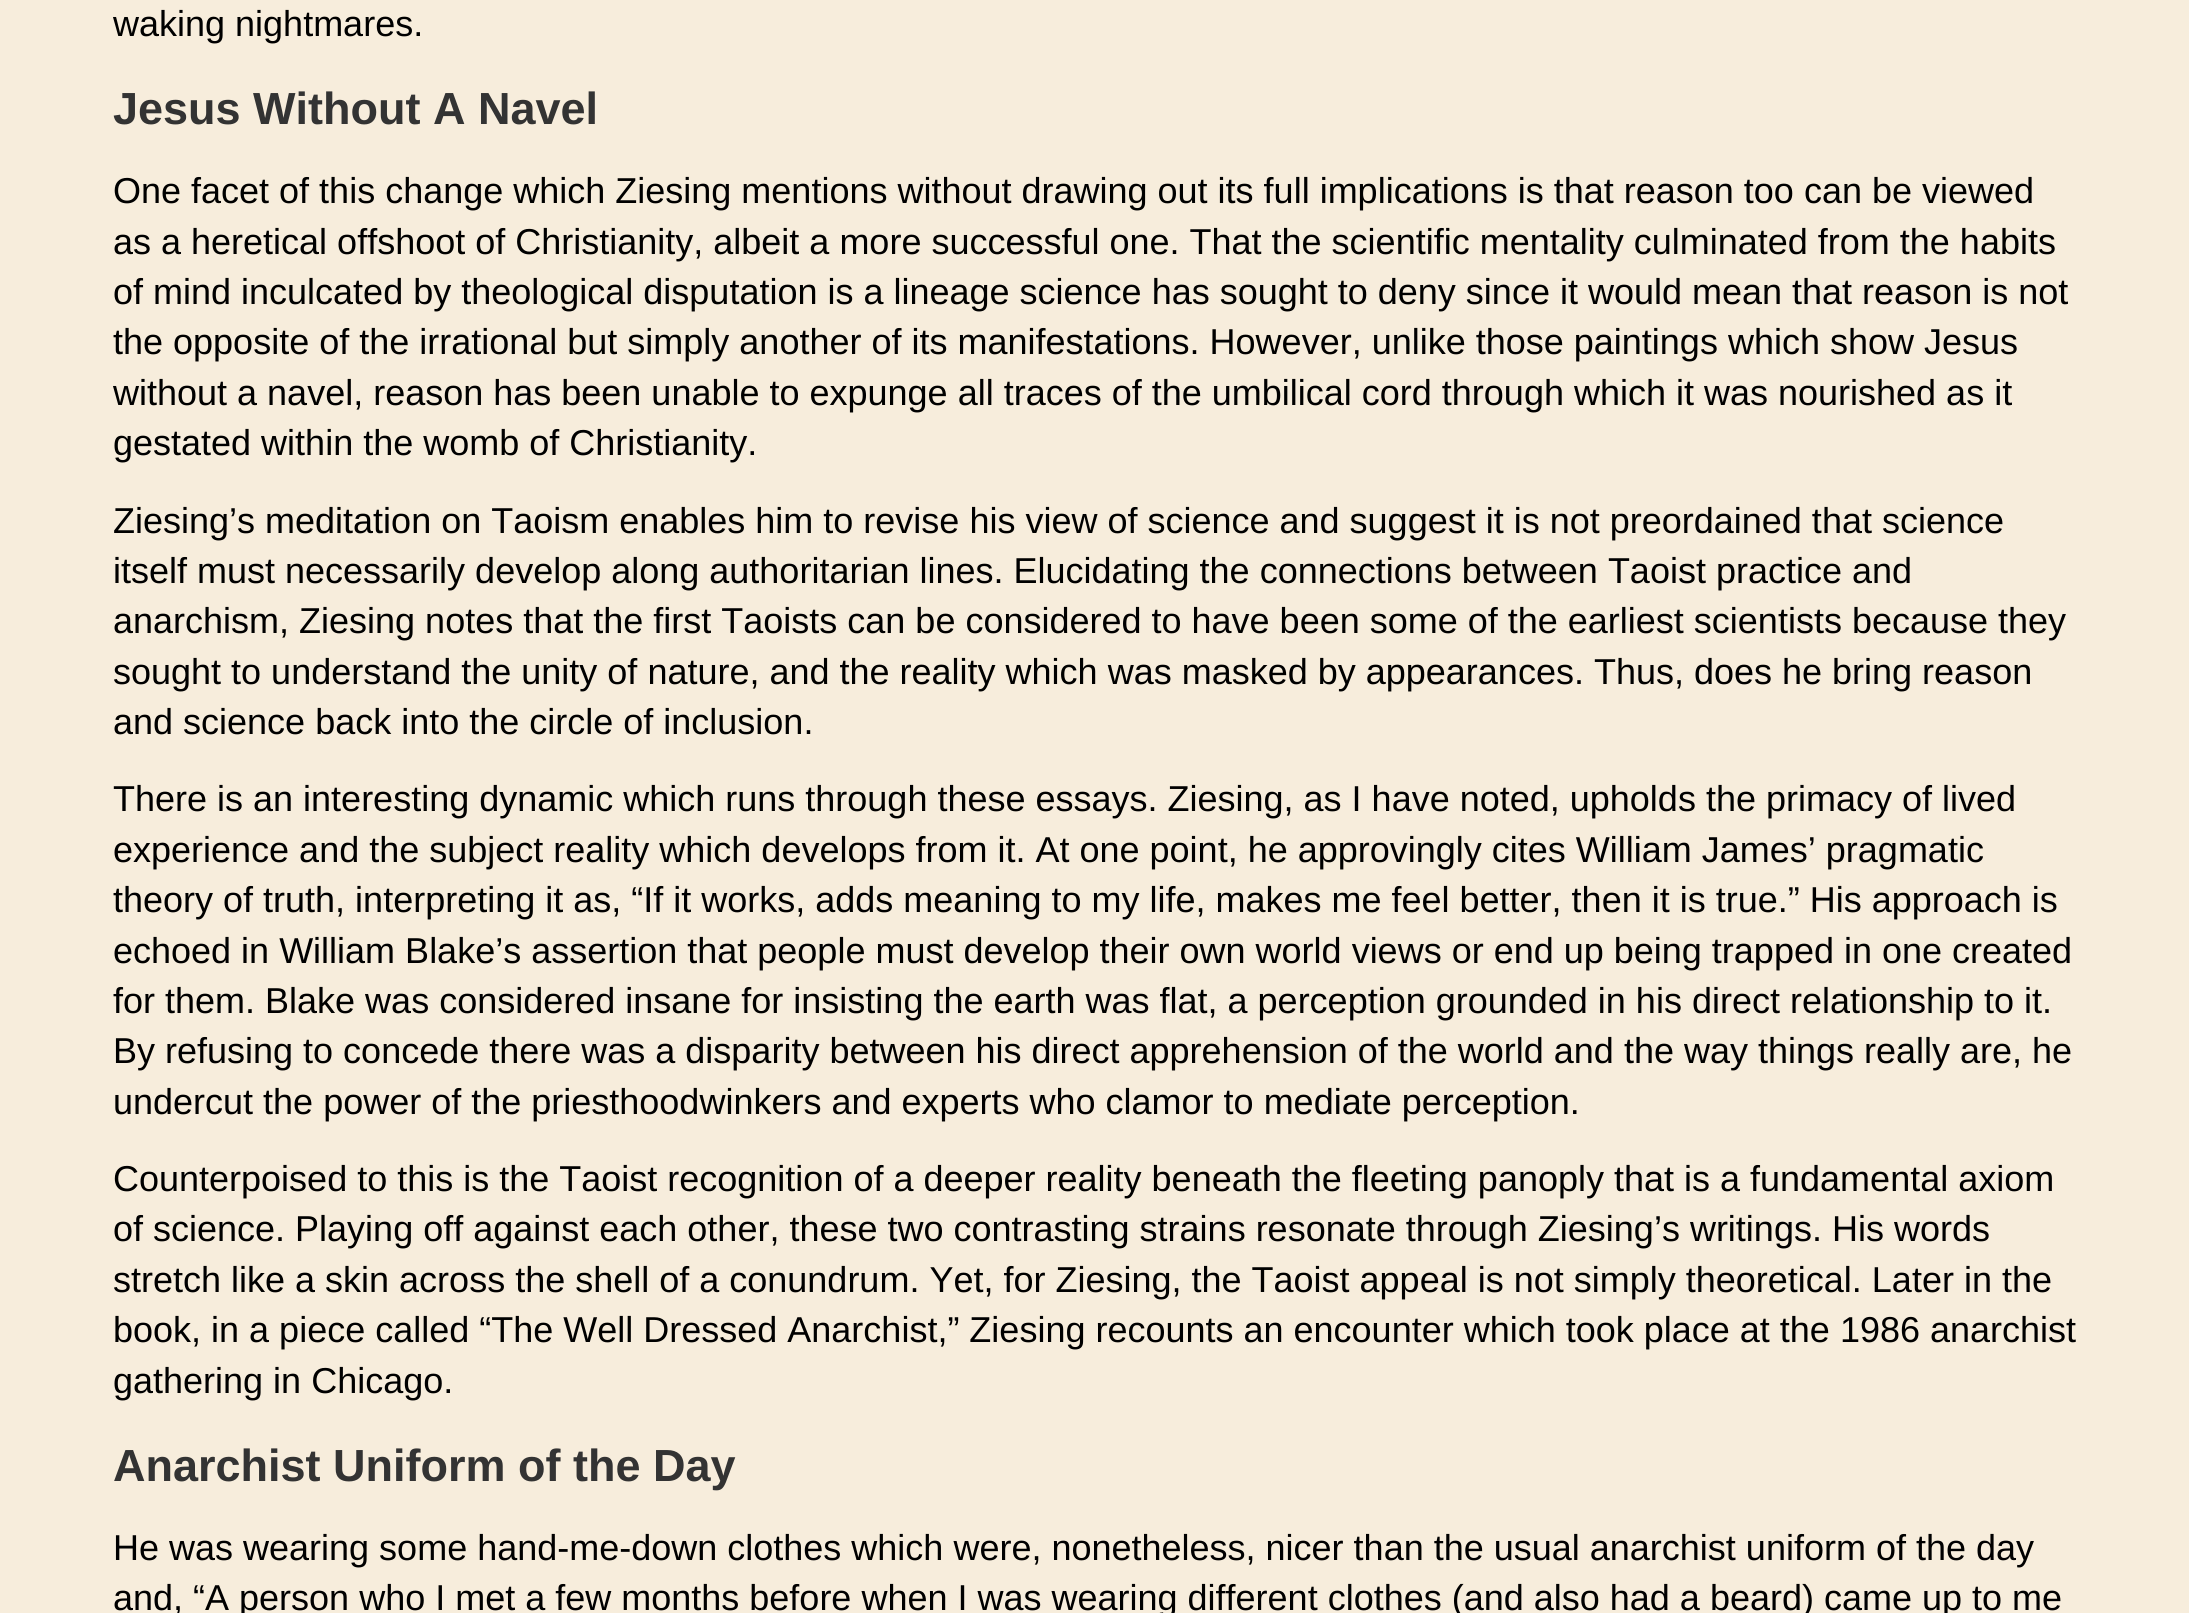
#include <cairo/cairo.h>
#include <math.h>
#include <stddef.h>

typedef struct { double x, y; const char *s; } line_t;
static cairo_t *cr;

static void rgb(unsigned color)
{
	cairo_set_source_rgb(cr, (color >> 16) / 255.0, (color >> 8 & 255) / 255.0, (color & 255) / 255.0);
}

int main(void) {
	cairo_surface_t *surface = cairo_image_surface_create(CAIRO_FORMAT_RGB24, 2189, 1613);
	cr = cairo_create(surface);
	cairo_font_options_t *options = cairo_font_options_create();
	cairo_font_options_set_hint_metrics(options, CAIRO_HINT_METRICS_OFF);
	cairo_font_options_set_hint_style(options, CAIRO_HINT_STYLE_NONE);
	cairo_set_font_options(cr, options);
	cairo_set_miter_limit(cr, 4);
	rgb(0xf7eddc);
	cairo_paint(cr);
	cairo_select_font_face(cr, "Liberation Sans", CAIRO_FONT_SLANT_NORMAL, CAIRO_FONT_WEIGHT_NORMAL);
	cairo_set_font_size(cr, 36);
	rgb(0x000000);
	cairo_move_to(cr, 113, 36);
	cairo_show_text(cr, "waking nightmares.");
	cairo_select_font_face(cr, "Liberation Sans", CAIRO_FONT_SLANT_NORMAL, CAIRO_FONT_WEIGHT_BOLD);
	cairo_set_font_size(cr, 45);
	rgb(0x333333);
	cairo_move_to(cr, 113, 124);
	cairo_show_text(cr, "Jesus Without A Navel");
	cairo_select_font_face(cr, "Liberation Sans", CAIRO_FONT_SLANT_NORMAL, CAIRO_FONT_WEIGHT_NORMAL);
	cairo_set_font_size(cr, 36);
	rgb(0x000000);
	{
		static const line_t items[] = {
			{113, 203, "One facet of this change which Ziesing mentions without drawing out its full implications is that reason too can be viewed"},
			{113, 254, "as a heretical offshoot of Christianity, albeit a more successful one. That the scientific mentality culminated from the habits"},
			{113, 304, "of mind inculcated by theological disputation is a lineage science has sought to deny since it would mean that reason is not"},
			{113, 354, "the opposite of the irrational but simply another of its manifestations. However, unlike those paintings which show Jesus"},
			{113, 405, "without a navel, reason has been unable to expunge all traces of the umbilical cord through which it was nourished as it"},
			{113, 455, "gestated within the womb of Christianity."},
			{113, 533, "Ziesing’s meditation on Taoism enables him to revise his view of science and suggest it is not preordained that science"},
			{113, 583, "itself must necessarily develop along authoritarian lines. Elucidating the connections between Taoist practice and"},
			{113, 633, "anarchism, Ziesing notes that the first Taoists can be considered to have been some of the earliest scientists because they"},
			{113, 684, "sought to understand the unity of nature, and the reality which was masked by appearances. Thus, does he bring reason"},
			{113, 734, "and science back into the circle of inclusion."},
			{113, 811, "There is an interesting dynamic which runs through these essays. Ziesing, as I have noted, upholds the primacy of lived"},
			{113, 862, "experience and the subject reality which develops from it. At one point, he approvingly cites William James’ pragmatic"},
			{113, 912, "theory of truth, interpreting it as, “If it works, adds meaning to my life, makes me feel better, then it is true.” His approach is"},
			{113, 963, "echoed in William Blake’s assertion that people must develop their own world views or end up being trapped in one created"},
			{113, 1013, "for them. Blake was considered insane for insisting the earth was flat, a perception grounded in his direct relationship to it."},
			{113, 1063, "By refusing to concede there was a disparity between his direct apprehension of the world and the way things really are, he"},
			{113, 1114, "undercut the power of the priesthoodwinkers and experts who clamor to mediate perception."},
			{113, 1191, "Counterpoised to this is the Taoist recognition of a deeper reality beneath the fleeting panoply that is a fundamental axiom"},
			{113, 1241, "of science. Playing off against each other, these two contrasting strains resonate through Ziesing’s writings. His words"},
			{113, 1292, "stretch like a skin across the shell of a conundrum. Yet, for Ziesing, the Taoist appeal is not simply theoretical. Later in the"},
			{113, 1342, "book, in a piece called “The Well Dressed Anarchist,” Ziesing recounts an encounter which took place at the 1986 anarchist"},
			{113, 1393, "gathering in Chicago."},
		};
		for (size_t i = 0; i < sizeof items / sizeof *items; i++) {
			cairo_move_to(cr, items[i].x, items[i].y);
			cairo_show_text(cr, items[i].s);
		}
	}
	cairo_select_font_face(cr, "Liberation Sans", CAIRO_FONT_SLANT_NORMAL, CAIRO_FONT_WEIGHT_BOLD);
	cairo_set_font_size(cr, 45);
	rgb(0x333333);
	cairo_move_to(cr, 113, 1481);
	cairo_show_text(cr, "Anarchist Uniform of the Day");
	cairo_select_font_face(cr, "Liberation Sans", CAIRO_FONT_SLANT_NORMAL, CAIRO_FONT_WEIGHT_NORMAL);
	cairo_set_font_size(cr, 36);
	rgb(0x000000);
	cairo_move_to(cr, 113, 1560);
	cairo_show_text(cr, "He was wearing some hand-me-down clothes which were, nonetheless, nicer than the usual anarchist uniform of the day");
	cairo_move_to(cr, 113, 1610);
	cairo_show_text(cr, "and, “A person who I met a few months before when I was wearing different clothes (and also had a beard) came up to me");
	cairo_surface_write_to_png(surface, "page.png");
	cairo_font_options_destroy(options);
	cairo_destroy(cr);
	cairo_surface_destroy(surface);
	return 0;
}
